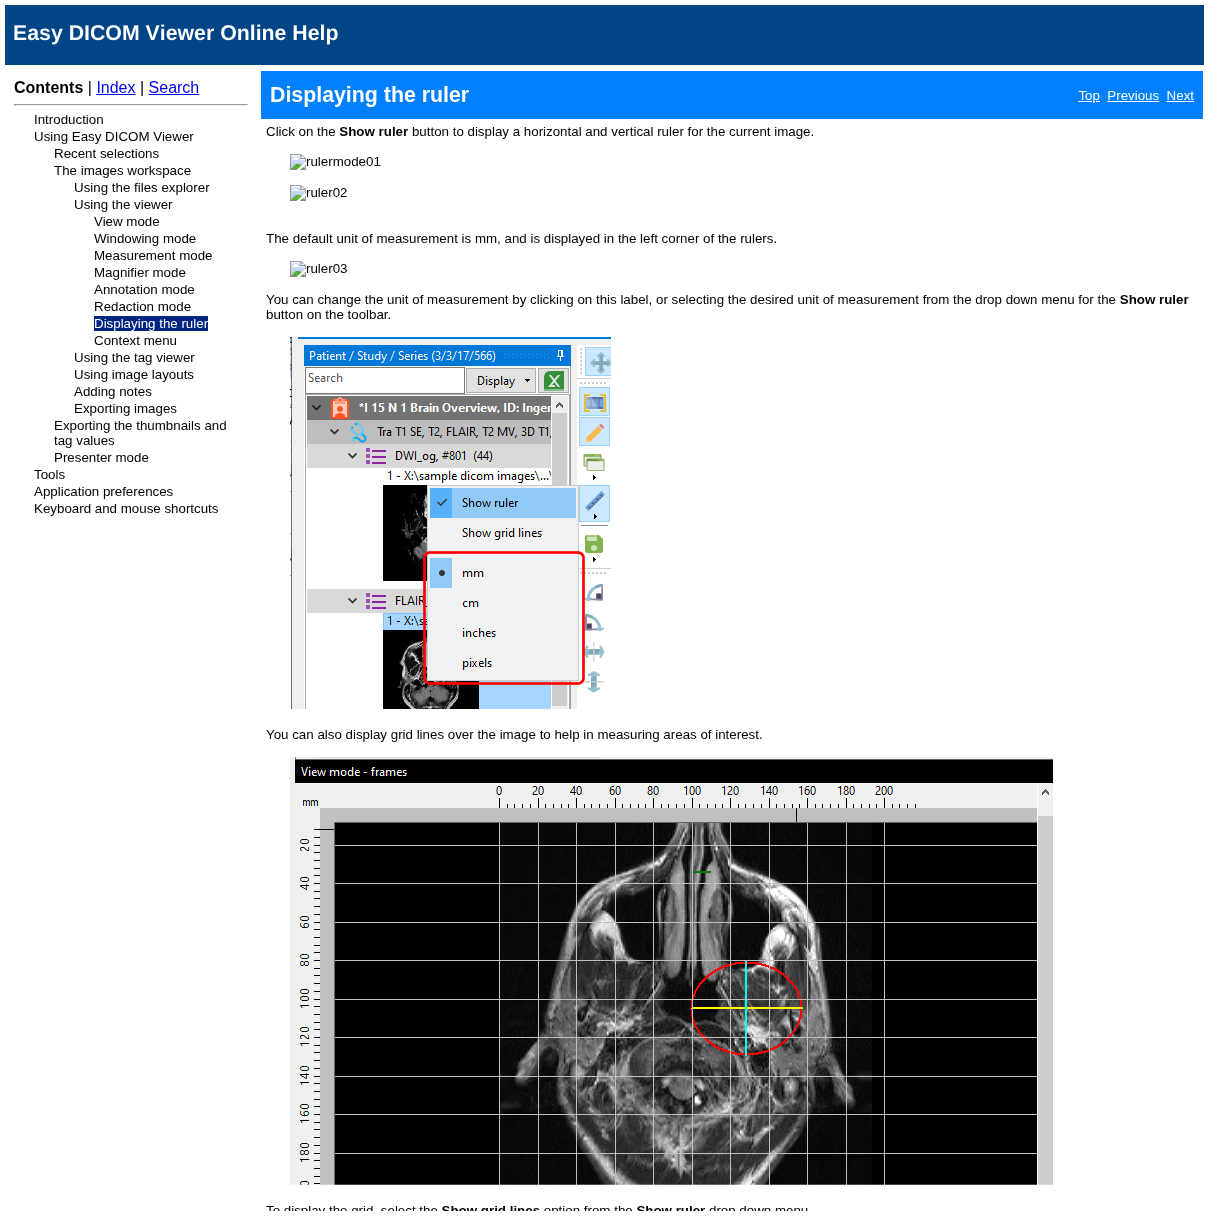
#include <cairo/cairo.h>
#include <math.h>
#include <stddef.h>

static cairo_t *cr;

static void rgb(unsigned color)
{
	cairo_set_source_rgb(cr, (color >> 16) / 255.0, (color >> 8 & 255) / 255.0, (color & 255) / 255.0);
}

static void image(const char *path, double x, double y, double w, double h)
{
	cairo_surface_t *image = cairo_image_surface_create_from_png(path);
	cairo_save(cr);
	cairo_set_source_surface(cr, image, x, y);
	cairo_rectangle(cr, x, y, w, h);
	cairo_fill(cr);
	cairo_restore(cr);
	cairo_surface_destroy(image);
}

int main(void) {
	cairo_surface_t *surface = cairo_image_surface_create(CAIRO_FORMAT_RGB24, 1209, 1217);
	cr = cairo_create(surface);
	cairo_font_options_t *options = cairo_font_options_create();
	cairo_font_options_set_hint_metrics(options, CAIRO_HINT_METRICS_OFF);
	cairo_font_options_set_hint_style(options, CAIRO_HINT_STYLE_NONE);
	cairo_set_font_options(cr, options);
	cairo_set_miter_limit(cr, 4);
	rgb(0xffffff);
	cairo_paint(cr);
	rgb(0x024586);
	cairo_rectangle(cr, 5, 5, 1199, 60);
	cairo_fill(cr);
	image("img/1.png", 14, 81, 234, 435);
	image("img/2.png", 261, 71, 942, 1140);
	cairo_select_font_face(cr, "Liberation Sans", CAIRO_FONT_SLANT_NORMAL, CAIRO_FONT_WEIGHT_BOLD);
	cairo_set_font_size(cr, 21.3);
	rgb(0xffffff);
	cairo_move_to(cr, 13, 40);
	cairo_show_text(cr, "Easy DICOM Viewer Online Help");
	cairo_surface_write_to_png(surface, "page.png");
	cairo_font_options_destroy(options);
	cairo_destroy(cr);
	cairo_surface_destroy(surface);
	return 0;
}
